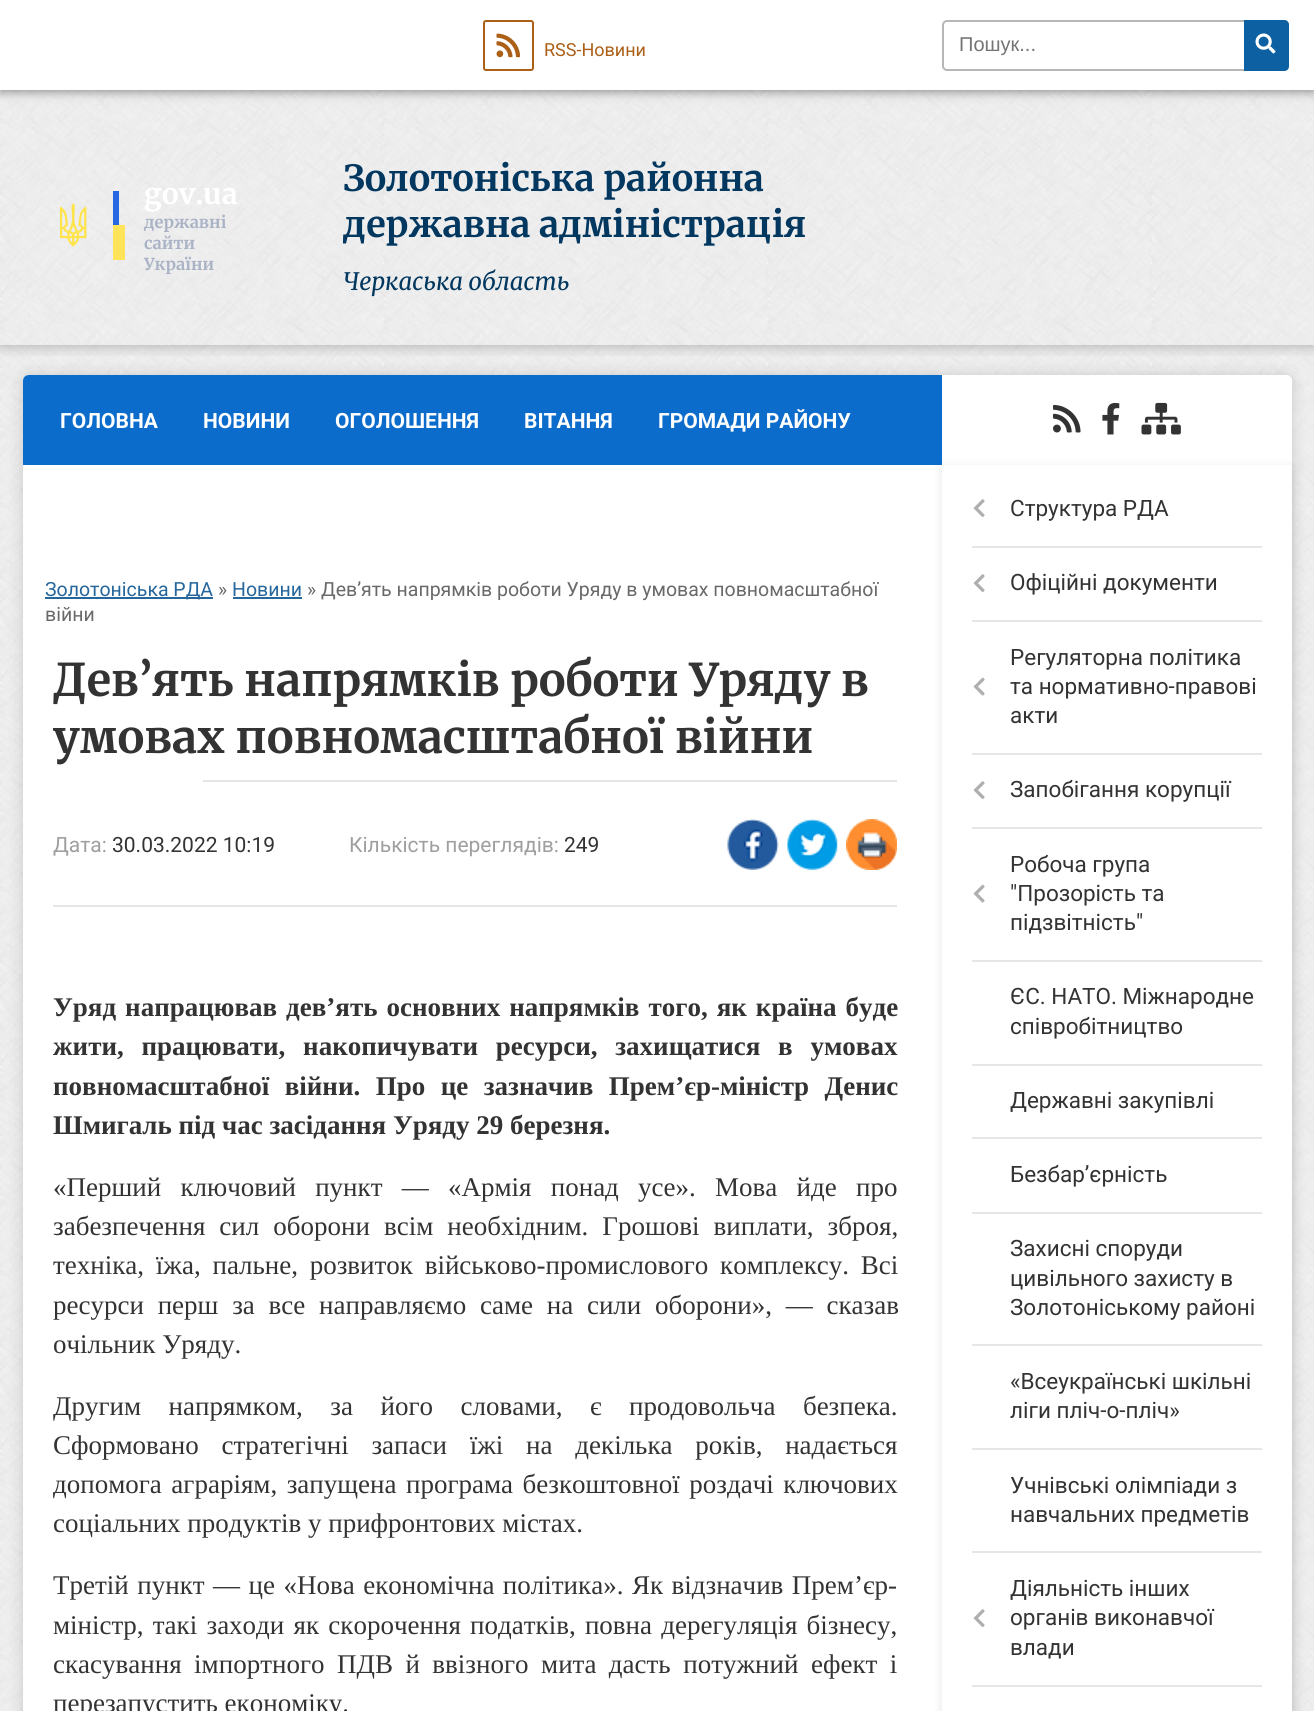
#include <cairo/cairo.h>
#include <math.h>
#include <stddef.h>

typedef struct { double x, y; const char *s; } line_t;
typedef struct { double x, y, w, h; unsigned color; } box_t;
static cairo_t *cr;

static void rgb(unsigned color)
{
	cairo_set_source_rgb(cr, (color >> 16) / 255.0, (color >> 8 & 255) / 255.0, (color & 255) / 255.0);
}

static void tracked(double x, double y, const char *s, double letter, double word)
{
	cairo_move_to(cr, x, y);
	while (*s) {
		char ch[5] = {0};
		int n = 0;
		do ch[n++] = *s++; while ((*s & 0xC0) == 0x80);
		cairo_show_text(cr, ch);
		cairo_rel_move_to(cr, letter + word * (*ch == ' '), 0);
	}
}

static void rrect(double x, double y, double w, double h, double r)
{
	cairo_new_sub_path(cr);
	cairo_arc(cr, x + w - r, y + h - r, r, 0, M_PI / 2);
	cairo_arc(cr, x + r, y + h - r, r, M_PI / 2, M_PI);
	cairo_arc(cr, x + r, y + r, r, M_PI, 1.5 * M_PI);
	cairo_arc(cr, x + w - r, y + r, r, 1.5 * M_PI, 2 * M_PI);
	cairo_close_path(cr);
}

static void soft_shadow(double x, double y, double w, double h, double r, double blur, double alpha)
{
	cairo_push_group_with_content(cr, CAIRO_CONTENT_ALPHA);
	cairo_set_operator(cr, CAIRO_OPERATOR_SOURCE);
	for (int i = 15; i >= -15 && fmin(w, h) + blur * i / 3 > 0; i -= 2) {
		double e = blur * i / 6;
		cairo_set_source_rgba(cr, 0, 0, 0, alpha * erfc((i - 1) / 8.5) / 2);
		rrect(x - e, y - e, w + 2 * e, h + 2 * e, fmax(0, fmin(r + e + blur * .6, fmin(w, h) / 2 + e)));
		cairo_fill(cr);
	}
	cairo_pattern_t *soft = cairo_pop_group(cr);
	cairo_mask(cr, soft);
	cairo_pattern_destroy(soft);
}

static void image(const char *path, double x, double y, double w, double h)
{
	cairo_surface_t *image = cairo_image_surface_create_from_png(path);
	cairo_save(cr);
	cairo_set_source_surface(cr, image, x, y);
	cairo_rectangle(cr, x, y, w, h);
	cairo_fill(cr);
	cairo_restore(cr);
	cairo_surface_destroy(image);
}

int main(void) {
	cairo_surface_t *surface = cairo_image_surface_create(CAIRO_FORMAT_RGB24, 1314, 1711);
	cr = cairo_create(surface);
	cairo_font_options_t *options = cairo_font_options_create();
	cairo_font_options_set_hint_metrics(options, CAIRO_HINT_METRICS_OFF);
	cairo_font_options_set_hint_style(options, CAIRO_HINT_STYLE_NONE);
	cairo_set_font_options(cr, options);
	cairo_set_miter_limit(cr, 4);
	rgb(0xffffff);
	cairo_paint(cr);
	image("img/1.png", 0, 90, 1314, 1621);
	rgb(0x000000);
	soft_shadow(0, 2, 1314, 90, 0, 5, 0.4);
	cairo_save(cr);
	cairo_rectangle(cr, 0, 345, 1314, 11);
	cairo_clip(cr);
	soft_shadow(0, 90, 1314, 255, 0, 7.5, 0.3);
	cairo_restore(cr);
	rgb(0xffffff);
	cairo_rectangle(cr, 0, 0, 1314, 90);
	cairo_fill(cr);
	rrect(484, 21, 49, 49, 2);
	rgb(0xab5f17);
	cairo_stroke(cr);
	image("img/2.png", 496, 33, 25, 25);
	rrect(943, 21, 345, 49, 4);
	rgb(0xb7b7b7);
	cairo_stroke(cr);
	rgb(0x0d61a2);
	cairo_new_path(cr);
	cairo_move_to(cr, 1244, 20);
	cairo_line_to(cr, 1284, 20);
	cairo_curve_to(cr, 1287, 20, 1289, 22, 1289, 25);
	cairo_line_to(cr, 1289, 66);
	cairo_curve_to(cr, 1289, 69, 1287, 71, 1284, 71);
	cairo_line_to(cr, 1244, 71);
	cairo_close_path(cr);
	cairo_fill(cr);
	image("img/3.png", 1255, 33, 21, 21);
	image("img/4.png", 60, 203, 27, 44);
	rgb(0x2669e3);
	cairo_rectangle(cr, 113, 191, 6, 34);
	cairo_fill(cr);
	rgb(0xffe358);
	cairo_rectangle(cr, 113, 225, 12, 35);
	cairo_fill(cr);
	rgb(0x000000);
	soft_shadow(23, 375, 1269, 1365, 6, 7.5, 0.15);
	rgb(0xffffff);
	rrect(23, 375, 1269, 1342, 6);
	cairo_fill(cr);
	rgb(0x0c6ccc);
	cairo_new_path(cr);
	cairo_move_to(cr, 29, 375);
	cairo_line_to(cr, 942, 375);
	cairo_line_to(cr, 942, 465);
	cairo_line_to(cr, 23, 465);
	cairo_line_to(cr, 23, 381);
	cairo_curve_to(cr, 23, 377.5, 25.5, 375, 29, 375);
	cairo_close_path(cr);
	cairo_fill(cr);
	{
		static const box_t items[] = {
			{45, 597, 168, 2, 0x25669c},
			{233, 597, 69, 2, 0x25669c},
			{203, 780, 694, 2, 0xe5e5e5},
		};
		for (size_t i = 0; i < sizeof items / sizeof *items; i++) {
			rgb(items[i].color);
			cairo_rectangle(cr, items[i].x, items[i].y, items[i].w, items[i].h);
			cairo_fill(cr);
		}
	}
	image("img/5.png", 727, 819, 52, 51);
	image("img/6.png", 787, 819, 51, 51);
	image("img/7.png", 846, 819, 51, 51);
	cairo_rectangle(cr, 53, 905, 844, 2);
	cairo_fill(cr);
	rgb(0xffffff);
	cairo_new_path(cr);
	cairo_move_to(cr, 942, 375);
	cairo_line_to(cr, 1286, 375);
	cairo_curve_to(cr, 1289.5, 375, 1292, 377.5, 1292, 381);
	cairo_line_to(cr, 1292, 465);
	cairo_line_to(cr, 942, 465);
	cairo_close_path(cr);
	cairo_fill(cr);
	image("img/8.png", 1053, 404, 28, 29);
	image("img/9.png", 1102, 402, 18, 33);
	image("img/10.png", 1141, 402, 40, 33);
	cairo_save(cr);
	cairo_set_fill_rule(cr, CAIRO_FILL_RULE_EVEN_ODD);
	cairo_new_path(cr);
	cairo_move_to(cr, 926, 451);
	cairo_line_to(cr, 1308, 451);
	cairo_line_to(cr, 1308, 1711);
	cairo_line_to(cr, 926, 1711);
	cairo_close_path(cr);
	cairo_move_to(cr, 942, 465);
	cairo_line_to(cr, 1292, 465);
	cairo_line_to(cr, 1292, 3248);
	cairo_line_to(cr, 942, 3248);
	cairo_close_path(cr);
	cairo_clip(cr);
	rgb(0x000000);
	soft_shadow(942, 467, 350, 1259, 0, 5, 0.1);
	cairo_restore(cr);
	image("img/11.png", 973, 499, 12, 18);
	rgb(0xe6e6e6);
	cairo_rectangle(cr, 972, 546, 290, 2);
	cairo_fill(cr);
	image("img/11.png", 973, 574, 12, 18);
	cairo_rectangle(cr, 972, 620, 290, 2);
	cairo_fill(cr);
	image("img/12.png", 973, 677, 12, 19);
	cairo_rectangle(cr, 972, 753, 290, 2);
	cairo_fill(cr);
	image("img/11.png", 973, 781, 12, 18);
	cairo_rectangle(cr, 972, 827, 290, 2);
	cairo_fill(cr);
	image("img/12.png", 973, 884, 12, 19);
	{
		static const box_t items[] = {
			{972, 960, 290, 2, 0xe6e6e6},
			{972, 1064, 290, 2, 0xe6e6e6},
			{972, 1137, 290, 2, 0xe6e6e6},
			{972, 1212, 290, 2, 0xe6e6e6},
			{972, 1344, 290, 2, 0xe6e6e6},
			{972, 1448, 290, 2, 0xe6e6e6},
			{972, 1551, 290, 2, 0xe6e6e6},
		};
		for (size_t i = 0; i < sizeof items / sizeof *items; i++) {
			rgb(items[i].color);
			cairo_rectangle(cr, items[i].x, items[i].y, items[i].w, items[i].h);
			cairo_fill(cr);
		}
	}
	image("img/11.png", 973, 1609, 12, 18);
	cairo_rectangle(cr, 972, 1685, 290, 2);
	cairo_fill(cr);
	cairo_select_font_face(cr, "Roboto", CAIRO_FONT_SLANT_NORMAL, CAIRO_FONT_WEIGHT_NORMAL);
	cairo_set_font_size(cr, 18);
	rgb(0xab5f17);
	cairo_move_to(cr, 544, 56);
	cairo_show_text(cr, "RSS-Новини");
	cairo_select_font_face(cr, "Liberation Sans", CAIRO_FONT_SLANT_NORMAL, CAIRO_FONT_WEIGHT_NORMAL);
	cairo_set_font_size(cr, 20);
	rgb(0x757575);
	cairo_move_to(cr, 959, 51);
	cairo_show_text(cr, "Пошук...");
	cairo_select_font_face(cr, "Merriweather Light", CAIRO_FONT_SLANT_NORMAL, CAIRO_FONT_WEIGHT_NORMAL);
	cairo_set_font_size(cr, 28.5);
	rgb(0xffffff);
	cairo_move_to(cr, 144, 204);
	cairo_show_text(cr, "gov.ua");
	cairo_set_font_size(cr, 16.5);
	rgb(0xaab3c6);
	{
		static const line_t items[] = {
			{144, 228, "державні"},
			{144, 249, "сайти"},
			{144, 270, "України"},
		};
		for (size_t i = 0; i < sizeof items / sizeof *items; i++) {
			cairo_move_to(cr, items[i].x, items[i].y);
			cairo_show_text(cr, items[i].s);
		}
	}
	cairo_set_font_size(cr, 36);
	rgb(0x02375f);
	cairo_move_to(cr, 343, 191);
	cairo_show_text(cr, "Золотоніська районна");
	cairo_move_to(cr, 343, 237);
	cairo_show_text(cr, "державна адміністрація");
	cairo_select_font_face(cr, "Merriweather Light", CAIRO_FONT_SLANT_ITALIC, CAIRO_FONT_WEIGHT_NORMAL);
	cairo_set_font_size(cr, 24);
	cairo_move_to(cr, 343, 290);
	cairo_show_text(cr, "Черкаська область");
	cairo_select_font_face(cr, "Roboto", CAIRO_FONT_SLANT_NORMAL, CAIRO_FONT_WEIGHT_BOLD);
	cairo_set_font_size(cr, 21);
	rgb(0xffffff);
	{
		static const line_t items[] = {
			{60, 428, "ГОЛОВНА"},
			{203, 428, "НОВИНИ"},
			{335, 428, "ОГОЛОШЕННЯ"},
			{524, 428, "ВІТАННЯ"},
			{658, 428, "ГРОМАДИ РАЙОНУ"},
		};
		for (size_t i = 0; i < sizeof items / sizeof *items; i++) {
			cairo_move_to(cr, items[i].x, items[i].y);
			cairo_show_text(cr, items[i].s);
		}
	}
	cairo_select_font_face(cr, "Roboto", CAIRO_FONT_SLANT_NORMAL, CAIRO_FONT_WEIGHT_NORMAL);
	cairo_set_font_size(cr, 19.5);
	rgb(0x25669c);
	cairo_move_to(cr, 45, 596);
	cairo_show_text(cr, "Золотоніська РДА");
	rgb(0x696969);
	cairo_move_to(cr, 218, 596);
	cairo_show_text(cr, "»");
	rgb(0x25669c);
	cairo_move_to(cr, 232, 596);
	cairo_show_text(cr, "Новини");
	rgb(0x696969);
	cairo_move_to(cr, 307, 596);
	cairo_show_text(cr, "» Дев’ять напрямків роботи Уряду в умовах повномасштабної");
	cairo_move_to(cr, 45, 621);
	cairo_show_text(cr, "війни");
	cairo_select_font_face(cr, "Merriweather Light", CAIRO_FONT_SLANT_NORMAL, CAIRO_FONT_WEIGHT_NORMAL);
	cairo_set_font_size(cr, 45);
	rgb(0x333333);
	cairo_move_to(cr, 53, 696);
	cairo_show_text(cr, "Дев’ять напрямків роботи Уряду в");
	cairo_move_to(cr, 53, 753);
	cairo_show_text(cr, "умовах повномасштабної війни");
	cairo_select_font_face(cr, "Roboto", CAIRO_FONT_SLANT_NORMAL, CAIRO_FONT_WEIGHT_NORMAL);
	cairo_set_font_size(cr, 21);
	rgb(0x9f9f9f);
	cairo_move_to(cr, 53, 852);
	cairo_show_text(cr, "Дата:");
	rgb(0x333333);
	cairo_move_to(cr, 112, 852);
	cairo_show_text(cr, "30.03.2022 10:19");
	rgb(0x9f9f9f);
	cairo_move_to(cr, 349, 852);
	cairo_show_text(cr, "Кількість переглядів:");
	rgb(0x333333);
	cairo_move_to(cr, 564, 852);
	cairo_show_text(cr, "249");
	cairo_select_font_face(cr, "Liberation Serif", CAIRO_FONT_SLANT_NORMAL, CAIRO_FONT_WEIGHT_BOLD);
	cairo_set_font_size(cr, 27);
	tracked(53, 1016, "Уряд напрацював дев’ять основних напрямків того, як країна буде", 0, 2.25);
	tracked(53, 1055, "жити, працювати, накопичувати ресурси, захищатися в умовах", 0, 11);
	tracked(53, 1095, "повномасштабної війни. Про це зазначив Прем’єр-міністр Денис", 0, 8.75);
	cairo_move_to(cr, 53, 1134);
	cairo_show_text(cr, "Шмигаль під час засідання Уряду 29 березня.");
	cairo_select_font_face(cr, "Liberation Serif", CAIRO_FONT_SLANT_NORMAL, CAIRO_FONT_WEIGHT_NORMAL);
	tracked(53, 1196, "«Перший ключовий пункт — «Армія понад усе». Мова йде про", 0, 12.5);
	tracked(53, 1235, "забезпечення сил оборони всім необхідним. Грошові виплати, зброя,", 0, 7.25);
	tracked(53, 1274, "техніка, їжа, пальне, розвиток військово-промислового комплексу. Всі", 0, 5);
	tracked(53, 1314, "ресурси перш за все направляємо саме на сили оборони», — сказав", 0, 7);
	cairo_move_to(cr, 53, 1353);
	cairo_show_text(cr, "очільник Уряду.");
	tracked(53, 1415, "Другим напрямком, за його словами, є продовольча безпека.", 0, 20.75);
	tracked(53, 1454, "Сформовано стратегічні запаси їжі на декілька років, надається", 0, 16);
	tracked(53, 1493, "допомога аграріям, запущена програма безкоштовної роздачі ключових", 0, 2.75);
	cairo_move_to(cr, 53, 1532);
	cairo_show_text(cr, "соціальних продуктів у прифронтових містах.");
	tracked(53, 1594, "Третій пункт — це «Нова економічна політика». Як відзначив Прем’єр-", 0, 1.75);
	tracked(53, 1634, "міністр, такі заходи як скорочення податків, повна дерегуляція бізнесу,", 0, 2.5);
	tracked(53, 1673, "скасування імпортного ПДВ й ввізного мита дасть потужний ефект і", 0, 5.75);
	cairo_move_to(cr, 53, 1712);
	cairo_show_text(cr, "перезапустить економіку.");
	cairo_select_font_face(cr, "Roboto", CAIRO_FONT_SLANT_NORMAL, CAIRO_FONT_WEIGHT_NORMAL);
	cairo_set_font_size(cr, 22.5);
	{
		static const line_t items[] = {
			{1010, 516, "Структура РДА"},
			{1010, 590, "Офіційні документи"},
			{1010, 665, "Регуляторна політика"},
			{1010, 694, "та нормативно-правові"},
			{1010, 723, "акти"},
			{1010, 797, "Запобігання корупції"},
			{1010, 872, "Робоча група"},
			{1010, 901, "\"Прозорість та"},
			{1010, 930, "підзвітність\""},
			{1010, 1004, "ЄС. НАТО. Міжнародне"},
			{1010, 1034, "співробітництво"},
			{1010, 1108, "Державні закупівлі"},
			{1010, 1182, "Безбар’єрність"},
			{1010, 1256, "Захисні споруди"},
			{1010, 1286, "цивільного захисту в"},
			{1010, 1315, "Золотоніському районі"},
			{1010, 1389, "«Всеукраїнські шкільні"},
			{1010, 1418, "ліги пліч-о-пліч»"},
			{1010, 1493, "Учнівські олімпіади з"},
			{1010, 1522, "навчальних предметів"},
			{1010, 1596, "Діяльність інших"},
			{1010, 1625, "органів виконавчої"},
			{1010, 1655, "влади"},
		};
		for (size_t i = 0; i < sizeof items / sizeof *items; i++) {
			cairo_move_to(cr, items[i].x, items[i].y);
			cairo_show_text(cr, items[i].s);
		}
	}
	cairo_surface_write_to_png(surface, "page.png");
	cairo_font_options_destroy(options);
	cairo_destroy(cr);
	cairo_surface_destroy(surface);
	return 0;
}
